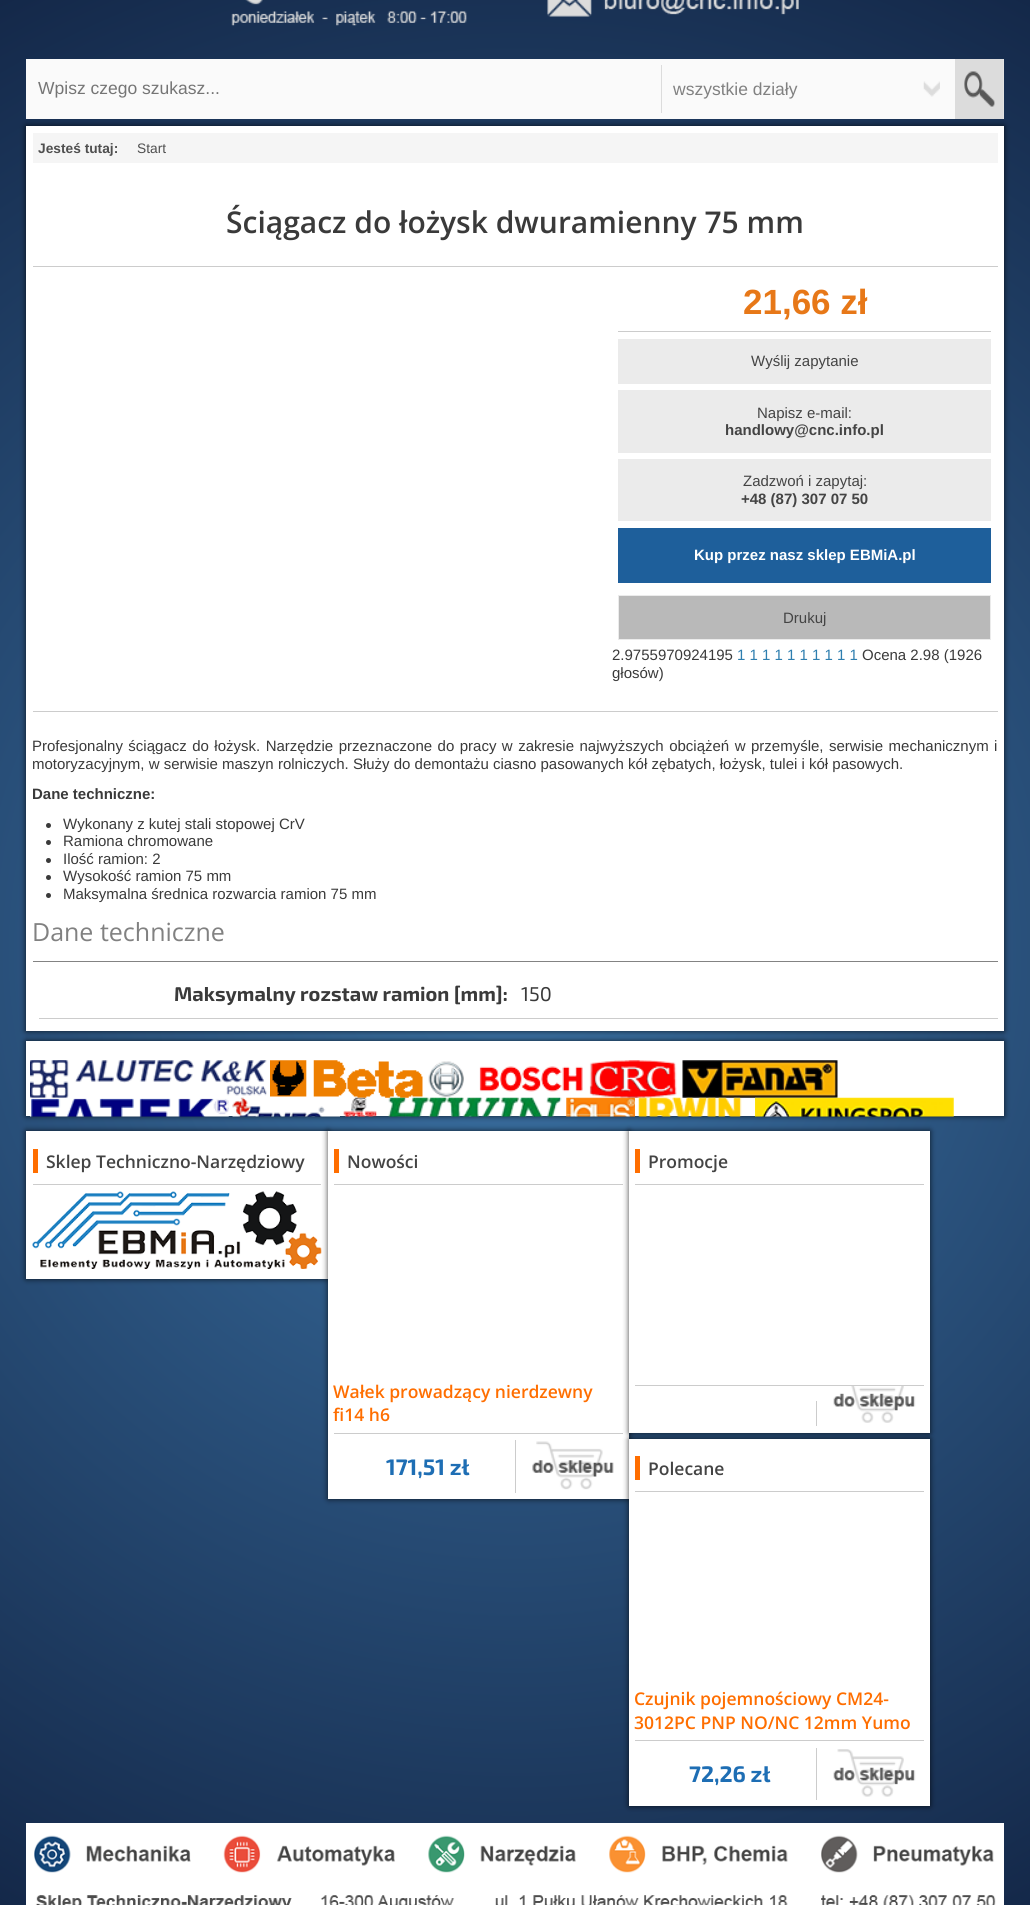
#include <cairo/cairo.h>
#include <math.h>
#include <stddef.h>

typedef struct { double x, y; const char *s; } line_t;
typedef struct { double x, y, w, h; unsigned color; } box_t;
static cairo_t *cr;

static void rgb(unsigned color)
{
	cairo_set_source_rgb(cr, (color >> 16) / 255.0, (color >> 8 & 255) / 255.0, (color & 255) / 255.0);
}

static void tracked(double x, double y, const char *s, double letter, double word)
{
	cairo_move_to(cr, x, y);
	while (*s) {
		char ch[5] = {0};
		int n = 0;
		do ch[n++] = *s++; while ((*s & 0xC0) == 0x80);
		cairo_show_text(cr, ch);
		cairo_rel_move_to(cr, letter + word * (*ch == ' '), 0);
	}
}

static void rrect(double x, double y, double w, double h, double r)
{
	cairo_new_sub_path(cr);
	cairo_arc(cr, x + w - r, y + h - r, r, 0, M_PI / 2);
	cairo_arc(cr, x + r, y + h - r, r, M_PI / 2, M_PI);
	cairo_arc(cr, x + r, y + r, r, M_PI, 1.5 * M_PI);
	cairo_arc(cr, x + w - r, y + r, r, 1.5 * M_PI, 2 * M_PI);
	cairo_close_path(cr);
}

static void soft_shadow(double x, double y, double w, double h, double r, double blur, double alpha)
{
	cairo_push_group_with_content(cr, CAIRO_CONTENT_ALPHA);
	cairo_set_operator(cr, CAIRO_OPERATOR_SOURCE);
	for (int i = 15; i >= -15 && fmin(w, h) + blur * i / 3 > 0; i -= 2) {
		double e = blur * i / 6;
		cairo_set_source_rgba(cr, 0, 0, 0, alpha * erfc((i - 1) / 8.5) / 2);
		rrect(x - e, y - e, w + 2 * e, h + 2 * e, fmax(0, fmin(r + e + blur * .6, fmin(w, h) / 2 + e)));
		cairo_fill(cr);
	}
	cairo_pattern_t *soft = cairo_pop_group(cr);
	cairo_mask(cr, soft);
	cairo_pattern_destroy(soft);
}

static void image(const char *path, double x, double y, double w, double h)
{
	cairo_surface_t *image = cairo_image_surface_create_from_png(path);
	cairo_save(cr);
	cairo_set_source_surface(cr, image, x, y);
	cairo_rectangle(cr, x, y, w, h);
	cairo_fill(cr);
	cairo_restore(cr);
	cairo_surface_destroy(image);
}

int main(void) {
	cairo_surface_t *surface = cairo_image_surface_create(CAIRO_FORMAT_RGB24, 1030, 1905);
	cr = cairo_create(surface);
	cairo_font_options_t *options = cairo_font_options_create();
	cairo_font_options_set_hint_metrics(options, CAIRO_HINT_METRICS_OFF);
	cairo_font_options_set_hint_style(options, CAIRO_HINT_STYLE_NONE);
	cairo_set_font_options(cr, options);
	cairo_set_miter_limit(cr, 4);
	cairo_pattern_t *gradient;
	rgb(0xffffff);
	cairo_paint(cr);
	gradient = cairo_pattern_create_radial(515, 953, 0, 515, 953, 1083);
	cairo_pattern_add_color_stop_rgba(gradient, 0, 0.235, 0.455, 0.655, 1);
	cairo_pattern_add_color_stop_rgba(gradient, 1, 0.078, 0.157, 0.286, 1);
	cairo_set_source(cr, gradient);
	cairo_pattern_destroy(gradient);
	cairo_rectangle(cr, 0, 0, 1030, 1905);
	cairo_fill(cr);
	image("img/1.png", 231, 0, 236, 26);
	image("img/2.png", 547, 0, 252, 17);
	rgb(0xfafafa);
	cairo_rectangle(cr, 26, 59, 978, 60);
	cairo_fill(cr);
	image("img/3.png", 923, 81, 17, 16);
	rgb(0xdcdcdc);
	cairo_rectangle(cr, 661, 65, 1, 48);
	cairo_fill(cr);
	image("img/4.png", 955, 59, 49, 60);
	rgb(0x000000);
	soft_shadow(26, 126, 978, 905, 0, 3, 0.75);
	{
		static const box_t items[] = {
			{26, 126, 978, 905, 0xffffff},
			{33, 133, 965, 30, 0xf5f5f5},
			{33, 266, 965, 1, 0xcccccc},
			{618, 331, 373, 1, 0xcccccc},
			{618, 339, 373, 45, 0xebebeb},
			{618, 390, 373, 63, 0xebebeb},
			{618, 459, 373, 62, 0xebebeb},
			{618, 528, 373, 55, 0x1e5f9b},
		};
		for (size_t i = 0; i < sizeof items / sizeof *items; i++) {
			rgb(items[i].color);
			cairo_rectangle(cr, items[i].x, items[i].y, items[i].w, items[i].h);
			cairo_fill(cr);
		}
	}
	rgb(0xb9b9b9);
	cairo_rectangle(cr, 618.5, 595.5, 372, 44);
	cairo_fill_preserve(cr);
	rgb(0xebebeb);
	cairo_set_line_width(cr, 1);
	cairo_stroke(cr);
	rgb(0xcccccc);
	cairo_rectangle(cr, 33, 711, 965, 1);
	cairo_fill(cr);
	rgb(0x3a3a3a);
	cairo_arc(cr, 48.5, 825.5, 2.5, 0, 2 * M_PI);
	cairo_fill(cr);
	cairo_arc(cr, 48.5, 842.5, 2.5, 0, 2 * M_PI);
	cairo_fill(cr);
	cairo_arc(cr, 48.5, 860.5, 2.5, 0, 2 * M_PI);
	cairo_fill(cr);
	cairo_arc(cr, 48.5, 877.5, 2.5, 0, 2 * M_PI);
	cairo_fill(cr);
	cairo_arc(cr, 48.5, 895.5, 2.5, 0, 2 * M_PI);
	cairo_fill(cr);
	rgb(0x838383);
	cairo_rectangle(cr, 33, 961, 965, 1);
	cairo_fill(cr);
	rgb(0xcccccc);
	cairo_rectangle(cr, 39, 1018, 959, 1);
	cairo_fill(cr);
	rgb(0x000000);
	soft_shadow(26, 1041, 978, 75, 0, 3, 0.75);
	rgb(0xffffff);
	cairo_rectangle(cr, 26, 1041, 978, 75);
	cairo_fill(cr);
	image("img/5.png", 30, 1060, 237, 38);
	image("img/6.png", 270, 1060, 153, 38);
	image("img/7.png", 428, 1061, 155, 36);
	image("img/8.png", 589, 1060, 88, 38);
	image("img/9.png", 682, 1060, 156, 38);
	image("img/10.png", 30, 1097, 199, 20);
	image("img/11.png", 232, 1097, 108, 20);
	image("img/12.png", 343, 1097, 34, 20);
	image("img/13.png", 388, 1097, 174, 20);
	image("img/14.png", 566, 1097, 69, 20);
	image("img/15.png", 638, 1097, 104, 20);
	image("img/16.png", 755, 1097, 199, 20);
	rgb(0x000000);
	soft_shadow(26, 1131, 302, 148, 0, 3, 0.75);
	{
		static const box_t items[] = {
			{26, 1131, 302, 148, 0xffffff},
			{33, 1184, 288, 1, 0xcccccc},
			{33, 1149, 5, 24, 0xff6e00},
		};
		for (size_t i = 0; i < sizeof items / sizeof *items; i++) {
			rgb(items[i].color);
			cairo_rectangle(cr, items[i].x, items[i].y, items[i].w, items[i].h);
			cairo_fill(cr);
		}
	}
	image("img/17.png", 32, 1191, 290, 78);
	rgb(0x000000);
	soft_shadow(328, 1131, 301, 368, 0, 3, 0.75);
	{
		static const box_t items[] = {
			{328, 1131, 301, 368, 0xffffff},
			{334, 1184, 289, 1, 0xcccccc},
			{334, 1149, 5, 24, 0xff6e00},
		};
		for (size_t i = 0; i < sizeof items / sizeof *items; i++) {
			rgb(items[i].color);
			cairo_rectangle(cr, items[i].x, items[i].y, items[i].w, items[i].h);
			cairo_fill(cr);
		}
	}
	image("img/18.png", 532, 1441, 82, 49);
	rgb(0xcccccc);
	cairo_rectangle(cr, 334, 1433, 289, 1);
	cairo_fill(cr);
	cairo_rectangle(cr, 515, 1440, 1, 53);
	cairo_fill(cr);
	rgb(0x000000);
	soft_shadow(629, 1131, 301, 302, 0, 3, 0.75);
	{
		static const box_t items[] = {
			{629, 1131, 301, 302, 0xffffff},
			{635, 1184, 289, 1, 0xcccccc},
			{635, 1149, 5, 24, 0xff6e00},
		};
		for (size_t i = 0; i < sizeof items / sizeof *items; i++) {
			rgb(items[i].color);
			cairo_rectangle(cr, items[i].x, items[i].y, items[i].w, items[i].h);
			cairo_fill(cr);
		}
	}
	image("img/19.png", 833, 1386, 83, 37);
	rgb(0xcccccc);
	cairo_rectangle(cr, 635, 1385, 289, 1);
	cairo_fill(cr);
	cairo_rectangle(cr, 816, 1401, 1, 25);
	cairo_fill(cr);
	rgb(0x000000);
	soft_shadow(629, 1439, 301, 367, 0, 3, 0.75);
	{
		static const box_t items[] = {
			{629, 1439, 301, 367, 0xffffff},
			{635, 1491, 289, 1, 0xcccccc},
			{635, 1456, 5, 24, 0xff6e00},
		};
		for (size_t i = 0; i < sizeof items / sizeof *items; i++) {
			rgb(items[i].color);
			cairo_rectangle(cr, items[i].x, items[i].y, items[i].w, items[i].h);
			cairo_fill(cr);
		}
	}
	image("img/20.png", 833, 1749, 83, 48);
	{
		static const box_t items[] = {
			{635, 1740, 289, 1, 0xcccccc},
			{816, 1748, 1, 52, 0xcccccc},
			{26, 1823, 978, 82, 0xffffff},
		};
		for (size_t i = 0; i < sizeof items / sizeof *items; i++) {
			rgb(items[i].color);
			cairo_rectangle(cr, items[i].x, items[i].y, items[i].w, items[i].h);
			cairo_fill(cr);
		}
	}
	image("img/21.png", 34, 1835, 962, 70);
	cairo_select_font_face(cr, "Liberation Sans", CAIRO_FONT_SLANT_NORMAL, CAIRO_FONT_WEIGHT_NORMAL);
	cairo_set_font_size(cr, 17.5);
	rgb(0x757575);
	cairo_move_to(cr, 38, 94);
	cairo_show_text(cr, "Wpisz czego szukasz...");
	rgb(0x818181);
	cairo_move_to(cr, 673, 95);
	cairo_show_text(cr, "wszystkie działy");
	cairo_select_font_face(cr, "Liberation Sans", CAIRO_FONT_SLANT_NORMAL, CAIRO_FONT_WEIGHT_BOLD);
	cairo_set_font_size(cr, 13.75);
	rgb(0x4f4f4f);
	cairo_move_to(cr, 38, 153);
	cairo_show_text(cr, "Jesteś tutaj:");
	cairo_select_font_face(cr, "Liberation Sans", CAIRO_FONT_SLANT_NORMAL, CAIRO_FONT_WEIGHT_NORMAL);
	cairo_move_to(cr, 137, 153);
	cairo_show_text(cr, "Start");
	cairo_select_font_face(cr, "Open Sans SemiBold", CAIRO_FONT_SLANT_NORMAL, CAIRO_FONT_WEIGHT_NORMAL);
	cairo_set_font_size(cr, 30);
	rgb(0x3a3a3a);
	cairo_move_to(cr, 226, 233);
	cairo_show_text(cr, "Ściągacz do łożysk dwuramienny 75 mm");
	cairo_select_font_face(cr, "Liberation Sans", CAIRO_FONT_SLANT_NORMAL, CAIRO_FONT_WEIGHT_BOLD);
	cairo_set_font_size(cr, 35);
	rgb(0xe77818);
	cairo_move_to(cr, 743, 314);
	cairo_show_text(cr, "21,66 zł");
	cairo_select_font_face(cr, "Liberation Sans", CAIRO_FONT_SLANT_NORMAL, CAIRO_FONT_WEIGHT_NORMAL);
	cairo_set_font_size(cr, 15);
	rgb(0x444444);
	cairo_move_to(cr, 751, 366);
	cairo_show_text(cr, "Wyślij zapytanie");
	cairo_move_to(cr, 757, 418);
	cairo_show_text(cr, "Napisz e-mail:");
	cairo_select_font_face(cr, "Liberation Sans", CAIRO_FONT_SLANT_NORMAL, CAIRO_FONT_WEIGHT_BOLD);
	cairo_move_to(cr, 725, 435);
	cairo_show_text(cr, "handlowy@cnc.info.pl");
	cairo_select_font_face(cr, "Liberation Sans", CAIRO_FONT_SLANT_NORMAL, CAIRO_FONT_WEIGHT_NORMAL);
	cairo_move_to(cr, 743, 486);
	cairo_show_text(cr, "Zadzwoń i zapytaj:");
	cairo_select_font_face(cr, "Liberation Sans", CAIRO_FONT_SLANT_NORMAL, CAIRO_FONT_WEIGHT_BOLD);
	cairo_move_to(cr, 741, 504);
	cairo_show_text(cr, "+48 (87) 307 07 50");
	rgb(0xffffff);
	cairo_move_to(cr, 694, 560);
	cairo_show_text(cr, "Kup przez nasz sklep EBMiA.pl");
	cairo_select_font_face(cr, "Liberation Sans", CAIRO_FONT_SLANT_NORMAL, CAIRO_FONT_WEIGHT_NORMAL);
	rgb(0x444444);
	cairo_move_to(cr, 783, 623);
	cairo_show_text(cr, "Drukuj");
	rgb(0x3a3a3a);
	cairo_move_to(cr, 612, 660);
	cairo_show_text(cr, "2.9755970924195");
	rgb(0x2e7eaf);
	cairo_move_to(cr, 737, 660);
	cairo_show_text(cr, "1 1 1 1 1 1 1 1 1 1");
	rgb(0x3a3a3a);
	cairo_move_to(cr, 862, 660);
	cairo_show_text(cr, "Ocena 2.98 (1926");
	cairo_move_to(cr, 612, 678);
	cairo_show_text(cr, "głosów)");
	tracked(32, 751, "Profesjonalny ściągacz do łożysk. Narzędzie przeznaczone do pracy w zakresie najwyższych obciążeń w przemyśle, serwisie mechanicznym i", 0, 1.3);
	cairo_move_to(cr, 32, 769);
	cairo_show_text(cr, "motoryzacyjnym, w serwisie maszyn rolniczych. Służy do demontażu ciasno pasowanych kół zębatych, łożysk, tulei i kół pasowych.");
	cairo_select_font_face(cr, "Liberation Sans", CAIRO_FONT_SLANT_NORMAL, CAIRO_FONT_WEIGHT_BOLD);
	cairo_move_to(cr, 32, 799);
	cairo_show_text(cr, "Dane techniczne:");
	cairo_select_font_face(cr, "Liberation Sans", CAIRO_FONT_SLANT_NORMAL, CAIRO_FONT_WEIGHT_NORMAL);
	{
		static const line_t items[] = {
			{63, 829, "Wykonany z kutej stali stopowej CrV"},
			{63, 846, "Ramiona chromowane"},
			{63, 864, "Ilość ramion: 2"},
			{63, 881, "Wysokość ramion 75 mm"},
			{63, 899, "Maksymalna średnica rozwarcia ramion 75 mm"},
		};
		for (size_t i = 0; i < sizeof items / sizeof *items; i++) {
			cairo_move_to(cr, items[i].x, items[i].y);
			cairo_show_text(cr, items[i].s);
		}
	}
	cairo_select_font_face(cr, "Open Sans", CAIRO_FONT_SLANT_NORMAL, CAIRO_FONT_WEIGHT_NORMAL);
	cairo_set_font_size(cr, 25);
	rgb(0x818181);
	cairo_move_to(cr, 32, 941);
	cairo_show_text(cr, "Dane techniczne");
	cairo_select_font_face(cr, "Exo 2", CAIRO_FONT_SLANT_NORMAL, CAIRO_FONT_WEIGHT_BOLD);
	cairo_set_font_size(cr, 20);
	rgb(0x3a3a3a);
	cairo_move_to(cr, 174, 1001);
	cairo_show_text(cr, "Maksymalny rozstaw ramion [mm]:");
	cairo_select_font_face(cr, "Exo 2", CAIRO_FONT_SLANT_NORMAL, CAIRO_FONT_WEIGHT_NORMAL);
	cairo_move_to(cr, 521, 1001);
	cairo_show_text(cr, "150");
	cairo_select_font_face(cr, "Open Sans SemiBold", CAIRO_FONT_SLANT_NORMAL, CAIRO_FONT_WEIGHT_NORMAL);
	cairo_set_font_size(cr, 17.5);
	rgb(0x444444);
	cairo_move_to(cr, 46, 1168);
	cairo_show_text(cr, "Sklep Techniczno-Narzędziowy");
	cairo_move_to(cr, 347, 1168);
	cairo_show_text(cr, "Nowości");
	rgb(0xff6e00);
	cairo_move_to(cr, 333, 1398);
	cairo_show_text(cr, "Wałek prowadzący nierdzewny");
	cairo_move_to(cr, 333, 1421);
	cairo_show_text(cr, "fi14 h6");
	cairo_select_font_face(cr, "Exo 2", CAIRO_FONT_SLANT_NORMAL, CAIRO_FONT_WEIGHT_BOLD);
	cairo_set_font_size(cr, 22.5);
	rgb(0x1e6eb4);
	cairo_move_to(cr, 386, 1475);
	cairo_show_text(cr, "171,51 zł");
	cairo_select_font_face(cr, "Open Sans SemiBold", CAIRO_FONT_SLANT_NORMAL, CAIRO_FONT_WEIGHT_NORMAL);
	cairo_set_font_size(cr, 17.5);
	rgb(0x444444);
	cairo_move_to(cr, 648, 1168);
	cairo_show_text(cr, "Promocje");
	cairo_move_to(cr, 648, 1475);
	cairo_show_text(cr, "Polecane");
	rgb(0xff6e00);
	cairo_move_to(cr, 634, 1705);
	cairo_show_text(cr, "Czujnik pojemnościowy CM24-");
	cairo_move_to(cr, 634, 1729);
	cairo_show_text(cr, "3012PC PNP NO/NC 12mm Yumo");
	cairo_select_font_face(cr, "Exo 2", CAIRO_FONT_SLANT_NORMAL, CAIRO_FONT_WEIGHT_BOLD);
	cairo_set_font_size(cr, 22.5);
	rgb(0x1e6eb4);
	cairo_move_to(cr, 689, 1782);
	cairo_show_text(cr, "72,26 zł");
	cairo_surface_write_to_png(surface, "page.png");
	cairo_font_options_destroy(options);
	cairo_destroy(cr);
	cairo_surface_destroy(surface);
	return 0;
}
